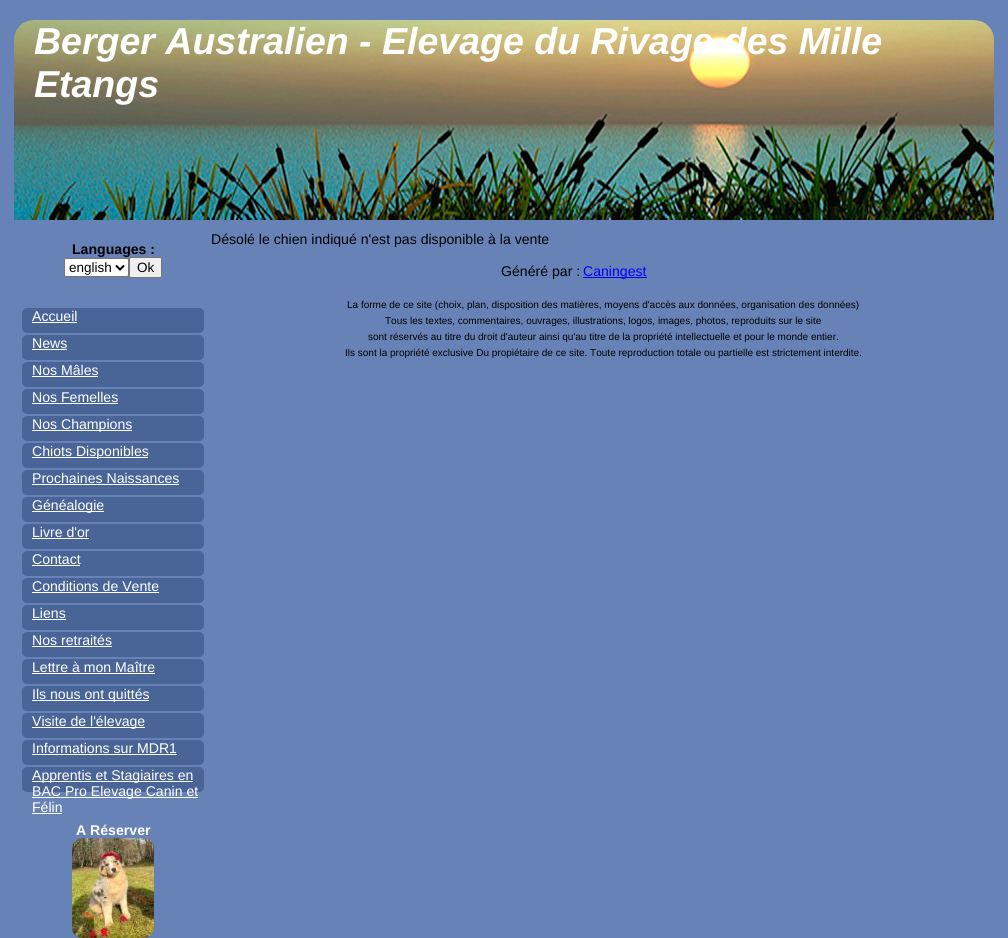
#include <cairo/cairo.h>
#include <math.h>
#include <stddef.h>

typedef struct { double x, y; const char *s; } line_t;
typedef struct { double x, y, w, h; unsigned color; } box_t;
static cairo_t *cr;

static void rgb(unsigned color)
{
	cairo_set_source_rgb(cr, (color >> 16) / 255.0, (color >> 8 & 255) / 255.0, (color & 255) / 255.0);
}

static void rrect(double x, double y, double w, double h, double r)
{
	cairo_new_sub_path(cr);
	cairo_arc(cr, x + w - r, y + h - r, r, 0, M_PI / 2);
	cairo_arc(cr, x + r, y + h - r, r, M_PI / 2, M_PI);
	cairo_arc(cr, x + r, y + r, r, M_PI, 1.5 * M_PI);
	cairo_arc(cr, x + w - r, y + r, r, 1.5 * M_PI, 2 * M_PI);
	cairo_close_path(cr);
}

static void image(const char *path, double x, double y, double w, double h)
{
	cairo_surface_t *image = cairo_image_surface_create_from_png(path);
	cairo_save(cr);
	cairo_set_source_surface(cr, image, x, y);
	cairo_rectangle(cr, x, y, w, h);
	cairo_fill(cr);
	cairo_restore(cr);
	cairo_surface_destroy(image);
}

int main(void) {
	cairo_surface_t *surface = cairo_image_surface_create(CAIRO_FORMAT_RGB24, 1008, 938);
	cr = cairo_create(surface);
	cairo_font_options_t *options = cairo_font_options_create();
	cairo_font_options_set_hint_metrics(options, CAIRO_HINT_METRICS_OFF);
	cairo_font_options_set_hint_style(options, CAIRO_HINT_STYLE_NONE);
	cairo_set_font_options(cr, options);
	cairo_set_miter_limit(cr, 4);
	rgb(0x6782b6);
	cairo_paint(cr);
	image("img/1.png", 14, 20, 980, 200);
	rgb(0xffffff);
	rrect(64.5, 258.5, 64, 18, 1.5);
	cairo_fill_preserve(cr);
	rgb(0x767676);
	cairo_set_line_width(cr, 1);
	cairo_stroke(cr);
	cairo_new_path(cr);
	cairo_move_to(cr, 116, 265.5);
	cairo_line_to(cr, 120, 269.5);
	cairo_line_to(cr, 124, 265.5);
	rgb(0x000000);
	cairo_set_line_width(cr, 2);
	cairo_stroke(cr);
	rgb(0xefefef);
	rrect(129.5, 257.5, 32, 20, 1.5);
	cairo_fill_preserve(cr);
	rgb(0x767676);
	cairo_set_line_width(cr, 1);
	cairo_stroke(cr);
	rgb(0x496598);
	rrect(22, 308, 182, 25, 5);
	cairo_fill(cr);
	rgb(0xffffff);
	cairo_rectangle(cr, 32, 322, 45, 1);
	cairo_fill(cr);
	rgb(0x496598);
	rrect(22, 335, 182, 25, 5);
	cairo_fill(cr);
	rgb(0xffffff);
	cairo_rectangle(cr, 32, 349, 35, 1);
	cairo_fill(cr);
	rgb(0x496598);
	rrect(22, 362, 182, 25, 5);
	cairo_fill(cr);
	rgb(0xffffff);
	cairo_rectangle(cr, 32, 376, 66, 1);
	cairo_fill(cr);
	rgb(0x496598);
	rrect(22, 389, 182, 25, 5);
	cairo_fill(cr);
	rgb(0xffffff);
	cairo_rectangle(cr, 32, 403, 86, 1);
	cairo_fill(cr);
	rgb(0x496598);
	rrect(22, 416, 182, 25, 5);
	cairo_fill(cr);
	rgb(0xffffff);
	cairo_rectangle(cr, 32, 430, 100, 1);
	cairo_fill(cr);
	rgb(0x496598);
	rrect(22, 443, 182, 25, 5);
	cairo_fill(cr);
	rgb(0xffffff);
	cairo_rectangle(cr, 32, 457, 116, 1);
	cairo_fill(cr);
	rgb(0x496598);
	rrect(22, 470, 182, 25, 5);
	cairo_fill(cr);
	rgb(0xffffff);
	cairo_rectangle(cr, 32, 484, 147, 1);
	cairo_fill(cr);
	rgb(0x496598);
	rrect(22, 497, 182, 25, 5);
	cairo_fill(cr);
	rgb(0xffffff);
	cairo_rectangle(cr, 32, 511, 72, 1);
	cairo_fill(cr);
	rgb(0x496598);
	rrect(22, 524, 182, 25, 5);
	cairo_fill(cr);
	rgb(0xffffff);
	cairo_rectangle(cr, 32, 538, 57, 1);
	cairo_fill(cr);
	rgb(0x496598);
	rrect(22, 551, 182, 25, 5);
	cairo_fill(cr);
	rgb(0xffffff);
	cairo_rectangle(cr, 32, 565, 48, 1);
	cairo_fill(cr);
	rgb(0x496598);
	rrect(22, 578, 182, 25, 5);
	cairo_fill(cr);
	rgb(0xffffff);
	cairo_rectangle(cr, 32, 592, 127, 1);
	cairo_fill(cr);
	rgb(0x496598);
	rrect(22, 605, 182, 25, 5);
	cairo_fill(cr);
	rgb(0xffffff);
	cairo_rectangle(cr, 32, 619, 34, 1);
	cairo_fill(cr);
	rgb(0x496598);
	rrect(22, 632, 182, 25, 5);
	cairo_fill(cr);
	rgb(0xffffff);
	cairo_rectangle(cr, 32, 646, 80, 1);
	cairo_fill(cr);
	rgb(0x496598);
	rrect(22, 659, 182, 25, 5);
	cairo_fill(cr);
	rgb(0xffffff);
	cairo_rectangle(cr, 32, 673, 123, 1);
	cairo_fill(cr);
	rgb(0x496598);
	rrect(22, 686, 182, 25, 5);
	cairo_fill(cr);
	rgb(0xffffff);
	cairo_rectangle(cr, 32, 700, 117, 1);
	cairo_fill(cr);
	rgb(0x496598);
	rrect(22, 713, 182, 25, 5);
	cairo_fill(cr);
	rgb(0xffffff);
	cairo_rectangle(cr, 32, 727, 113, 1);
	cairo_fill(cr);
	rgb(0x496598);
	rrect(22, 740, 182, 25, 5);
	cairo_fill(cr);
	rgb(0xffffff);
	cairo_rectangle(cr, 32, 754, 145, 1);
	cairo_fill(cr);
	rgb(0x496598);
	rrect(22, 767, 182, 25, 5);
	cairo_fill(cr);
	{
		static const box_t items[] = {
			{32, 781, 161, 1, 0xffffff},
			{32, 797, 166, 1, 0xffffff},
			{32, 813, 30, 1, 0xffffff},
		};
		for (size_t i = 0; i < sizeof items / sizeof *items; i++) {
			rgb(items[i].color);
			cairo_rectangle(cr, items[i].x, items[i].y, items[i].w, items[i].h);
			cairo_fill(cr);
		}
	}
	image("img/2.png", 72, 838, 82, 100);
	rgb(0x0000ff);
	cairo_rectangle(cr, 583, 277, 64, 1);
	cairo_fill(cr);
	cairo_select_font_face(cr, "Liberation Sans", CAIRO_FONT_SLANT_ITALIC, CAIRO_FONT_WEIGHT_BOLD);
	cairo_set_font_size(cr, 37.5);
	rgb(0xffffff);
	cairo_move_to(cr, 34, 54);
	cairo_show_text(cr, "Berger Australien - Elevage du Rivage des Mille");
	cairo_move_to(cr, 34, 97);
	cairo_show_text(cr, "Etangs");
	cairo_select_font_face(cr, "Liberation Sans", CAIRO_FONT_SLANT_NORMAL, CAIRO_FONT_WEIGHT_BOLD);
	cairo_set_font_size(cr, 14.1);
	rgb(0x000000);
	cairo_move_to(cr, 72, 254);
	cairo_show_text(cr, "Languages :");
	cairo_select_font_face(cr, "Liberation Sans", CAIRO_FONT_SLANT_NORMAL, CAIRO_FONT_WEIGHT_NORMAL);
	cairo_set_font_size(cr, 13.5);
	cairo_move_to(cr, 69, 272);
	cairo_show_text(cr, "english");
	cairo_move_to(cr, 137, 272);
	cairo_show_text(cr, "Ok");
	cairo_set_font_size(cr, 14.1);
	rgb(0xffffff);
	{
		static const line_t items[] = {
			{32, 321, "Accueil"},
			{32, 348, "News"},
			{32, 375, "Nos Mâles"},
			{32, 402, "Nos Femelles"},
			{32, 429, "Nos Champions"},
			{32, 456, "Chiots Disponibles"},
			{32, 483, "Prochaines Naissances"},
			{32, 510, "Généalogie"},
			{32, 537, "Livre d'or"},
			{32, 564, "Contact"},
			{32, 591, "Conditions de Vente"},
			{32, 618, "Liens"},
			{32, 645, "Nos retraités"},
			{32, 672, "Lettre à mon Maître"},
			{32, 699, "Ils nous ont quittés"},
			{32, 726, "Visite de l'élevage"},
			{32, 753, "Informations sur MDR1"},
			{32, 780, "Apprentis et Stagiaires en"},
			{32, 796, "BAC Pro Elevage Canin et"},
			{32, 812, "Félin"},
		};
		for (size_t i = 0; i < sizeof items / sizeof *items; i++) {
			cairo_move_to(cr, items[i].x, items[i].y);
			cairo_show_text(cr, items[i].s);
		}
	}
	cairo_select_font_face(cr, "Liberation Sans", CAIRO_FONT_SLANT_NORMAL, CAIRO_FONT_WEIGHT_BOLD);
	cairo_move_to(cr, 76, 835);
	cairo_show_text(cr, "A Réserver");
	cairo_select_font_face(cr, "Liberation Sans", CAIRO_FONT_SLANT_NORMAL, CAIRO_FONT_WEIGHT_NORMAL);
	rgb(0x000000);
	cairo_move_to(cr, 211, 244);
	cairo_show_text(cr, "Désolé le chien indiqué n'est pas disponible à la vente");
	cairo_move_to(cr, 501, 276);
	cairo_show_text(cr, "Généré par :");
	rgb(0x0000ff);
	cairo_move_to(cr, 583, 276);
	cairo_show_text(cr, "Caningest");
	cairo_set_font_size(cr, 10);
	rgb(0x000000);
	{
		static const line_t items[] = {
			{347, 308, "La forme de ce site (choix, plan, disposition des matières, moyens d'accès aux données, organisation des données)"},
			{385, 324, "Tous les textes, commentaires, ouvrages, illustrations, logos, images, photos, reproduits sur le site"},
			{368, 340, "sont réservés au titre du droit d'auteur ainsi qu'au titre de la propriété intellectuelle et pour le monde entier."},
			{345, 356, "Ils sont la propriété exclusive Du propiétaire de ce site. Toute reproduction totale ou partielle est strictement interdite."},
		};
		for (size_t i = 0; i < sizeof items / sizeof *items; i++) {
			cairo_move_to(cr, items[i].x, items[i].y);
			cairo_show_text(cr, items[i].s);
		}
	}
	cairo_surface_write_to_png(surface, "page.png");
	cairo_font_options_destroy(options);
	cairo_destroy(cr);
	cairo_surface_destroy(surface);
	return 0;
}
